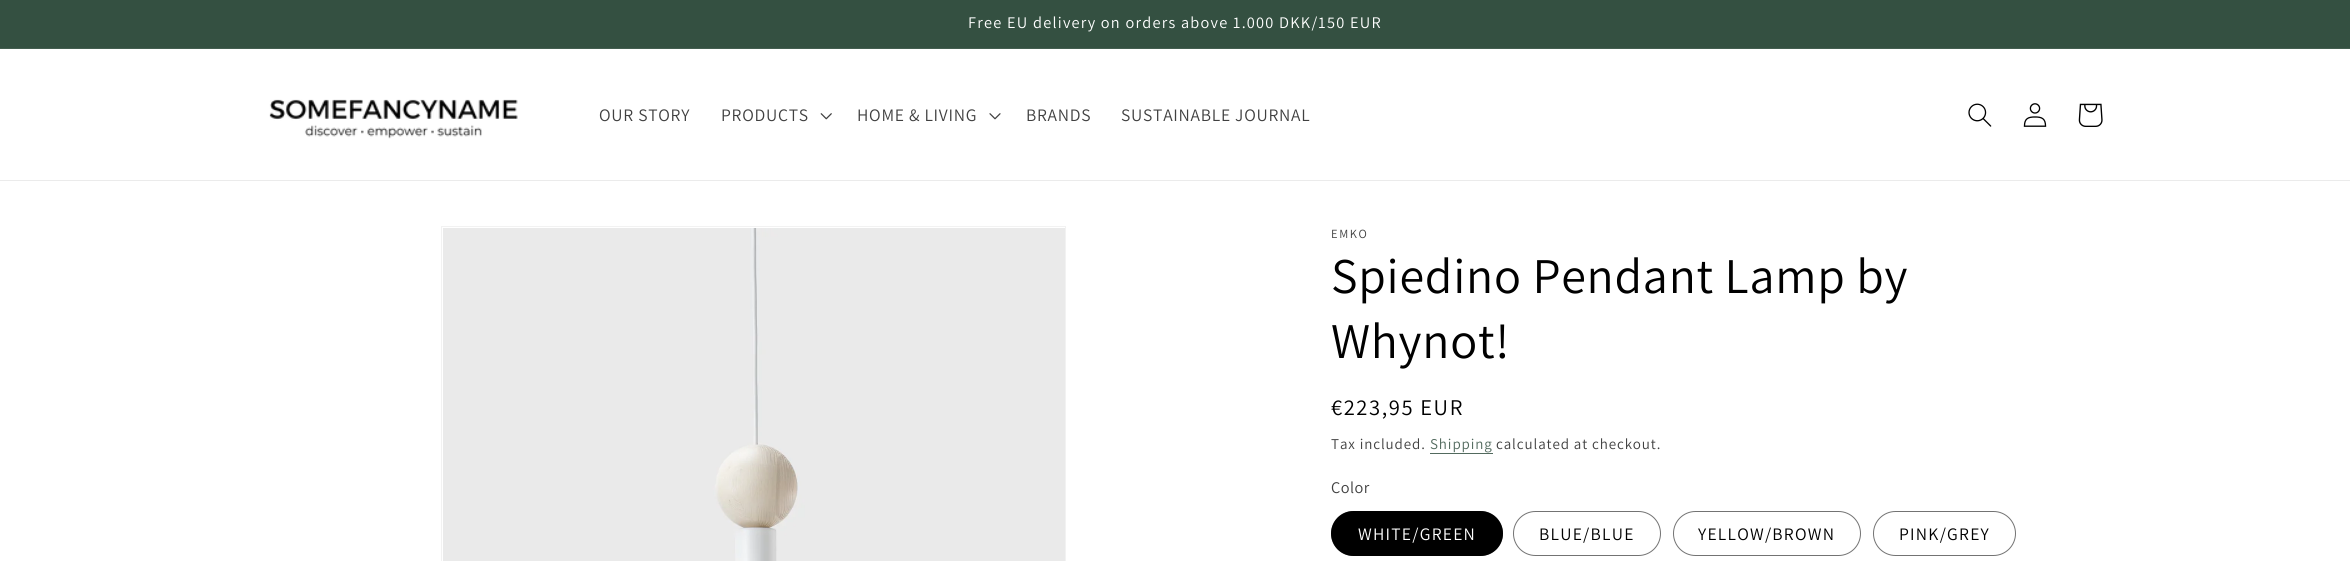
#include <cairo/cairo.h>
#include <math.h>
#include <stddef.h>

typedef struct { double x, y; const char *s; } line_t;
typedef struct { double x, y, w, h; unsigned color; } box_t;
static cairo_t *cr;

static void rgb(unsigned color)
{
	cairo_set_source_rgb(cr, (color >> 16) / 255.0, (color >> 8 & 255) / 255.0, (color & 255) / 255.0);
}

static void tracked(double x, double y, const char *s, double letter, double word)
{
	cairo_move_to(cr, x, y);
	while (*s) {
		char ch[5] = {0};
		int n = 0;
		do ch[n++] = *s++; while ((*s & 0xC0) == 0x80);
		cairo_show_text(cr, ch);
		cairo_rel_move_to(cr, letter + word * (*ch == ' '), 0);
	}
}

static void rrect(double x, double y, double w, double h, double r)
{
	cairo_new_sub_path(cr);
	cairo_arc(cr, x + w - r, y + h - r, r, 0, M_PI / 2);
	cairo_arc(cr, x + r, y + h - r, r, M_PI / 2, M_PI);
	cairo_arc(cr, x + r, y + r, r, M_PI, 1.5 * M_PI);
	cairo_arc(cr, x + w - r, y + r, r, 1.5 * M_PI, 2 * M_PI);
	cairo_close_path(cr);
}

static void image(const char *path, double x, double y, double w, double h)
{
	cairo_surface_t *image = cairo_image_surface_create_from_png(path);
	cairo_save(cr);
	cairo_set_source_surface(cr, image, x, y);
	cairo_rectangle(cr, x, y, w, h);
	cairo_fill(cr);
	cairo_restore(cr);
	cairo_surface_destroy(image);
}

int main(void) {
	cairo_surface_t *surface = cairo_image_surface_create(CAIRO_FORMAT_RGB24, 2350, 561);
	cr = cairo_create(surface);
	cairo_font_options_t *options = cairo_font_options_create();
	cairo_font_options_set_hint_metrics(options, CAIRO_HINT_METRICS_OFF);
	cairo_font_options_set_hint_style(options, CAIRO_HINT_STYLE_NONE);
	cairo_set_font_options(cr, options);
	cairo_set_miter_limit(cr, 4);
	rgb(0xffffff);
	cairo_paint(cr);
	{
		static const box_t items[] = {
			{0, 0, 2350, 48, 0x345041},
			{0, 48, 2350, 1, 0x445e50},
			{0, 180, 2350, 1, 0xebebeb},
		};
		for (size_t i = 0; i < sizeof items / sizeof *items; i++) {
			rgb(items[i].color);
			cairo_rectangle(cr, items[i].x, items[i].y, items[i].w, items[i].h);
			cairo_fill(cr);
		}
	}
	image("img/1.png", 269, 99, 249, 40);
	image("img/2.png", 820, 113, 12, 7);
	image("img/3.png", 989, 113, 12, 7);
	image("img/4.png", 1968, 103, 24, 24);
	image("img/5.png", 2023, 103, 24, 24);
	image("img/6.png", 2078, 103, 25, 24);
	cairo_rectangle(cr, 441.5, 226.5, 624, 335);
	rgb(0xf2f2f2);
	cairo_set_line_width(cr, 1);
	cairo_stroke(cr);
	image("img/7.png", 443, 228, 622, 333);
	rgb(0x526a5e);
	cairo_rectangle(cr, 1430, 453, 63, 1);
	cairo_fill(cr);
	rgb(0x000000);
	rrect(1331, 511, 172, 45, 22.5);
	cairo_fill(cr);
	rrect(1331.5, 511.5, 171, 44, 22);
	cairo_set_source_rgba(cr, 0, 0, 0, 0.55);
	cairo_stroke(cr);
	rrect(1513.5, 511.5, 147, 44, 22);
	rgb(0x737373);
	cairo_stroke(cr);
	rrect(1673.5, 511.5, 187, 44, 22);
	cairo_stroke(cr);
	rrect(1873.5, 511.5, 142, 44, 22);
	cairo_stroke(cr);
	cairo_select_font_face(cr, "Assistant", CAIRO_FONT_SLANT_NORMAL, CAIRO_FONT_WEIGHT_NORMAL);
	cairo_set_font_size(cr, 16.25);
	rgb(0xffffff);
	tracked(968, 28, "Free EU delivery on orders above 1.000 DKK/150 EUR", 1.25, 0);
	cairo_set_font_size(cr, 17.5);
	rgb(0x404040);
	{
		static const line_t items[] = {
			{599, 121, "OUR STORY"},
			{721, 121, "PRODUCTS"},
			{857, 121, "HOME & LIVING"},
			{1026, 121, "BRANDS"},
			{1121, 121, "SUSTAINABLE JOURNAL"},
		};
		for (size_t i = 0; i < sizeof items / sizeof *items; i++) {
			tracked(items[i].x, items[i].y, items[i].s, 0.75, 0);
		}
	}
	cairo_set_font_size(cr, 12.5);
	tracked(1331, 238, "EMKO", 1.6, 0);
	cairo_set_font_size(cr, 50);
	rgb(0x000000);
	tracked(1331, 293, "Spiedino Pendant Lamp by", 0.75, 0);
	tracked(1331, 358, "Whynot!", 0.75, 0);
	cairo_set_font_size(cr, 22.5);
	tracked(1331, 415, "€223,95 EUR", 1.6, 0);
	cairo_set_font_size(cr, 15);
	rgb(0x404040);
	tracked(1331, 449, "Tax included.", 0.9, 0);
	rgb(0x526a5e);
	tracked(1430, 449, "Shipping", 0.9, 0);
	rgb(0x404040);
	tracked(1496, 449, "calculated at checkout.", 0.9, 0);
	cairo_set_font_size(cr, 16.25);
	tracked(1331, 493, "Color", 0.5, 0);
	cairo_set_font_size(cr, 17.5);
	rgb(0xffffff);
	tracked(1358, 540, "WHITE/GREEN", 1.25, 0);
	rgb(0x000000);
	{
		static const line_t items[] = {
			{1539, 540, "BLUE/BLUE"},
			{1698, 540, "YELLOW/BROWN"},
			{1899, 540, "PINK/GREY"},
		};
		for (size_t i = 0; i < sizeof items / sizeof *items; i++) {
			tracked(items[i].x, items[i].y, items[i].s, 1.25, 0);
		}
	}
	cairo_surface_write_to_png(surface, "page.png");
	cairo_font_options_destroy(options);
	cairo_destroy(cr);
	cairo_surface_destroy(surface);
	return 0;
}
